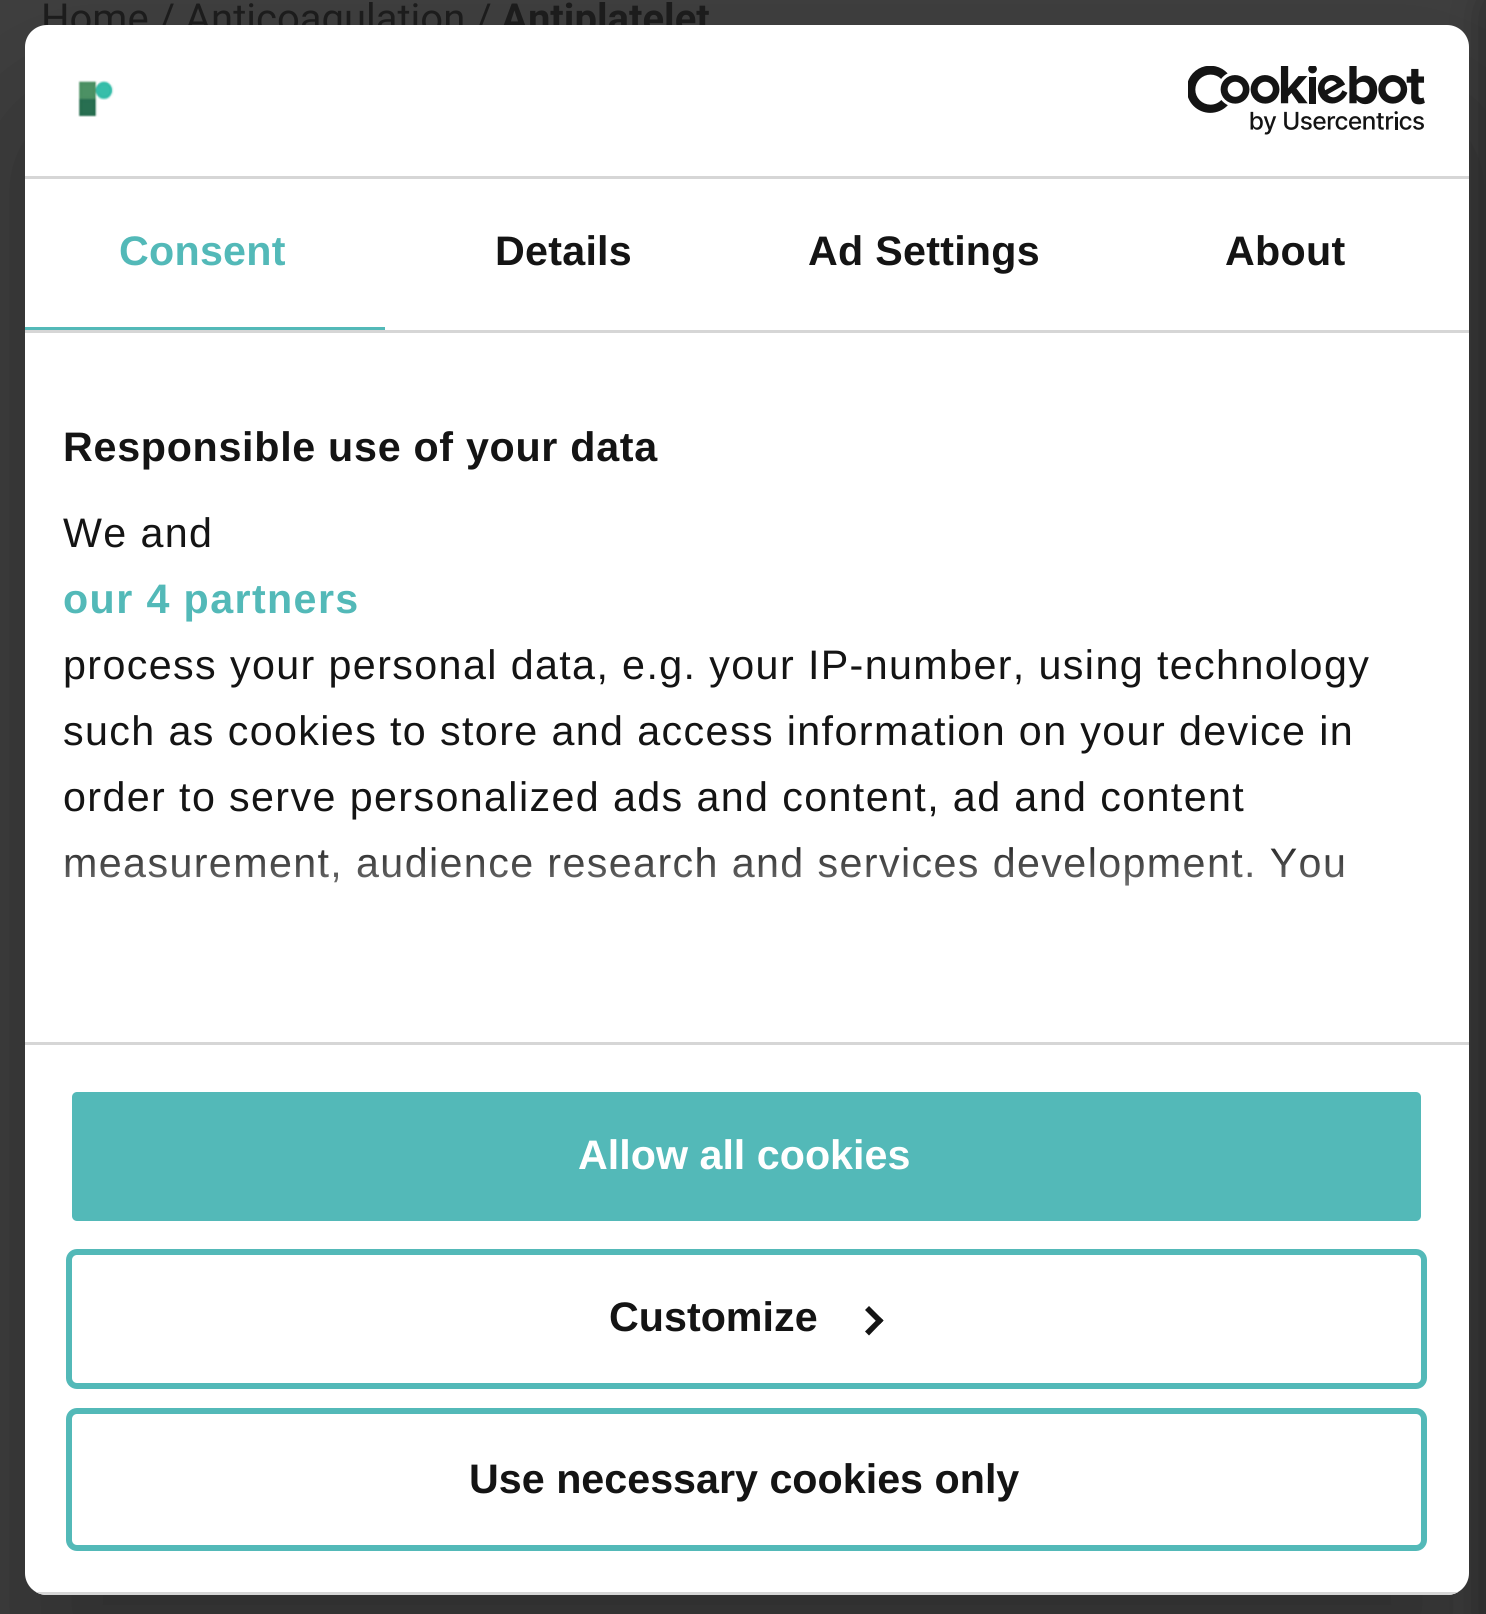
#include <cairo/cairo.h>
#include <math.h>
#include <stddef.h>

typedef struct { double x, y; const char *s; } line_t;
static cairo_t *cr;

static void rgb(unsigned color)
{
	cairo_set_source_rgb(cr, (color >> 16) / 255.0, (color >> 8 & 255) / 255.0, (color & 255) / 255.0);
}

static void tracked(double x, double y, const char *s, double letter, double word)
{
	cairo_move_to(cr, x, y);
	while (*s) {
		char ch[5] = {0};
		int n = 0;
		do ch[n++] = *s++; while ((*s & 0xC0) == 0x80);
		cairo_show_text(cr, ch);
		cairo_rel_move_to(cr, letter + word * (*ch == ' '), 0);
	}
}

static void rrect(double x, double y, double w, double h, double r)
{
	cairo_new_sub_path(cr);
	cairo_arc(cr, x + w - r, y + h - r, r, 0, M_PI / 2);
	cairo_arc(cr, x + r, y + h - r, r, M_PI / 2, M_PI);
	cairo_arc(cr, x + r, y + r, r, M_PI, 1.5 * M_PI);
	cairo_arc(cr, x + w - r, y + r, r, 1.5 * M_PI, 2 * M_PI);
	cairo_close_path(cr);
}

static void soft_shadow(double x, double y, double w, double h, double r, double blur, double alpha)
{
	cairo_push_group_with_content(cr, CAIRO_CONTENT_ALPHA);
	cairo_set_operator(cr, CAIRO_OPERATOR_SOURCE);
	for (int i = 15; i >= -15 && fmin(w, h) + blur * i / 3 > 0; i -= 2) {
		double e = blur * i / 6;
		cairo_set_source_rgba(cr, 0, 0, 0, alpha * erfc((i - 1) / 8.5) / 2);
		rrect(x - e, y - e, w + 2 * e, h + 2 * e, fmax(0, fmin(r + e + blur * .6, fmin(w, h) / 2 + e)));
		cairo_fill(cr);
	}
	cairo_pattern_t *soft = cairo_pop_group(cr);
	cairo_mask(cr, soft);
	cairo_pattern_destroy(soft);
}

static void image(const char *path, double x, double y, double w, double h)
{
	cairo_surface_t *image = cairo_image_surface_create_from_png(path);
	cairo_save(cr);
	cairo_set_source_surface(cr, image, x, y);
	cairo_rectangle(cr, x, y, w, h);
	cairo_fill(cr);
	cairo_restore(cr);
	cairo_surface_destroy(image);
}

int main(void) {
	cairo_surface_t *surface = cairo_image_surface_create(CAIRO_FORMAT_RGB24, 1486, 1614);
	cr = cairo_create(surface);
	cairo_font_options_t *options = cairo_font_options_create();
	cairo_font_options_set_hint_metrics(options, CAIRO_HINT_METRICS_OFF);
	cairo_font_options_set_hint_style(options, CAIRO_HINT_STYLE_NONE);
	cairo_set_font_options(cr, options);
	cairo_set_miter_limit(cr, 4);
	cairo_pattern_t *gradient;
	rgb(0x404040);
	cairo_paint(cr);
	rgb(0x000000);
	soft_shadow(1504, 8, 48, 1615, 0, 22, 1);
	cairo_save(cr);
	cairo_set_fill_rule(cr, CAIRO_FILL_RULE_EVEN_ODD);
	cairo_new_path(cr);
	cairo_move_to(cr, 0, 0);
	cairo_line_to(cr, 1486, 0);
	cairo_line_to(cr, 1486, 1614);
	cairo_line_to(cr, 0, 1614);
	cairo_close_path(cr);
	cairo_move_to(cr, 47, 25);
	cairo_line_to(cr, 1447, 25);
	cairo_curve_to(cr, 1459, 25, 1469, 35, 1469, 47);
	cairo_line_to(cr, 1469, 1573);
	cairo_curve_to(cr, 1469, 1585, 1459, 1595, 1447, 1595);
	cairo_line_to(cr, 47, 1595);
	cairo_curve_to(cr, 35, 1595, 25, 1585, 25, 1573);
	cairo_line_to(cr, 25, 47);
	cairo_curve_to(cr, 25, 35, 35, 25, 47, 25);
	cairo_close_path(cr);
	cairo_clip(cr);
	soft_shadow(25, 113, 1444, 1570, 22, 93.5, 0.3);
	cairo_restore(cr);
	cairo_select_font_face(cr, "Roboto", CAIRO_FONT_SLANT_NORMAL, CAIRO_FONT_WEIGHT_NORMAL);
	cairo_set_font_size(cr, 40);
	rgb(0x1c1c1c);
	cairo_move_to(cr, 41, 32);
	cairo_show_text(cr, "Home /");
	cairo_move_to(cr, 185, 32);
	cairo_show_text(cr, "Anticoagulation /");
	cairo_select_font_face(cr, "Roboto", CAIRO_FONT_SLANT_NORMAL, CAIRO_FONT_WEIGHT_BOLD);
	cairo_move_to(cr, 501, 32);
	cairo_show_text(cr, "Antiplatelet");
	rgb(0xffffff);
	rrect(25, 25, 1444, 1570, 22);
	cairo_fill(cr);
	rgb(0xd6d6d6);
	cairo_rectangle(cr, 25, 176, 1444, 3);
	cairo_fill(cr);
	image("img/1.png", 78, 80, 36, 37);
	image("img/2.png", 1188, 66, 237, 69);
	cairo_rectangle(cr, 25, 330, 1444, 3);
	cairo_fill(cr);
	rgb(0x53b9b8);
	cairo_rectangle(cr, 25, 327, 360, 3);
	cairo_fill(cr);
	cairo_select_font_face(cr, "Liberation Sans", CAIRO_FONT_SLANT_NORMAL, CAIRO_FONT_WEIGHT_BOLD);
	cairo_set_font_size(cr, 41.25);
	tracked(119, 265, "Consent", 0.25, 0);
	rgb(0x141414);
	{
		static const line_t items[] = {
			{495, 265, "Details"},
			{808, 265, "Ad Settings"},
			{1225, 265, "About"},
		};
		for (size_t i = 0; i < sizeof items / sizeof *items; i++) {
			tracked(items[i].x, items[i].y, items[i].s, 0.25, 0);
		}
	}
	rgb(0xd6d6d6);
	cairo_rectangle(cr, 25, 1042, 1444, 3);
	cairo_fill(cr);
	rgb(0x141414);
	tracked(63, 461, "Responsible use of your data", 0.7, 0);
	cairo_select_font_face(cr, "Liberation Sans", CAIRO_FONT_SLANT_NORMAL, CAIRO_FONT_WEIGHT_NORMAL);
	tracked(63, 547, "We and", 1.38, 0);
	cairo_select_font_face(cr, "Liberation Sans", CAIRO_FONT_SLANT_NORMAL, CAIRO_FONT_WEIGHT_BOLD);
	rgb(0x53b9b8);
	tracked(63, 613, "our 4 partners", 1.38, 0);
	cairo_select_font_face(cr, "Liberation Sans", CAIRO_FONT_SLANT_NORMAL, CAIRO_FONT_WEIGHT_NORMAL);
	rgb(0x141414);
	{
		static const line_t items[] = {
			{63, 679, "process your personal data, e.g. your IP-number, using technology"},
			{63, 745, "such as cookies to store and access information on your device in"},
			{63, 811, "order to serve personalized ads and content, ad and content"},
			{63, 877, "measurement, audience research and services development. You"},
		};
		for (size_t i = 0; i < sizeof items / sizeof *items; i++) {
			tracked(items[i].x, items[i].y, items[i].s, 1.38, 0);
		}
	}
	gradient = cairo_pattern_create_linear(727, 1041, 727, 835);
	cairo_pattern_add_color_stop_rgba(gradient, 0, 1, 1, 1, 1);
	cairo_pattern_add_color_stop_rgba(gradient, 0.5, 1, 1, 1, 0.8);
	cairo_pattern_add_color_stop_rgba(gradient, 1, 1, 1, 1, 0);
	cairo_set_source(cr, gradient);
	cairo_pattern_destroy(gradient);
	cairo_rectangle(cr, 66, 847, 1278, 39);
	cairo_fill(cr);
	cairo_save(cr);
	rrect(25, 25, 1444, 1570, 22);
	cairo_clip(cr);
	rgb(0xd6d6d6);
	cairo_rectangle(cr, 36, 1592, 1422, 3);
	cairo_fill(cr);
	cairo_restore(cr);
	rgb(0x53b9b8);
	rrect(69, 1089, 1355, 135, 8);
	cairo_fill_preserve(cr);
	rgb(0xffffff);
	cairo_set_line_width(cr, 6);
	cairo_stroke(cr);
	cairo_select_font_face(cr, "Liberation Sans", CAIRO_FONT_SLANT_NORMAL, CAIRO_FONT_WEIGHT_BOLD);
	cairo_move_to(cr, 578, 1169);
	cairo_show_text(cr, "Allow all cookies");
	rrect(69, 1252, 1355, 134, 8);
	rgb(0x53b9b8);
	cairo_stroke(cr);
	rgb(0x141414);
	cairo_move_to(cr, 609, 1331);
	cairo_show_text(cr, "Customize");
	cairo_new_path(cr);
	cairo_move_to(cr, 869, 1306);
	cairo_line_to(cr, 883.5, 1320.5);
	cairo_line_to(cr, 879.5, 1324.5);
	cairo_line_to(cr, 865, 1310);
	cairo_close_path(cr);
	cairo_fill(cr);
	cairo_new_path(cr);
	cairo_move_to(cr, 879.5, 1317);
	cairo_line_to(cr, 883.5, 1320.5);
	cairo_line_to(cr, 869, 1335.5);
	cairo_line_to(cr, 865, 1331.5);
	cairo_close_path(cr);
	cairo_fill(cr);
	rrect(69, 1411, 1355, 137, 8);
	rgb(0x53b9b8);
	cairo_stroke(cr);
	rgb(0x141414);
	cairo_move_to(cr, 469, 1493);
	cairo_show_text(cr, "Use necessary cookies only");
	cairo_surface_write_to_png(surface, "page.png");
	cairo_font_options_destroy(options);
	cairo_destroy(cr);
	cairo_surface_destroy(surface);
	return 0;
}
